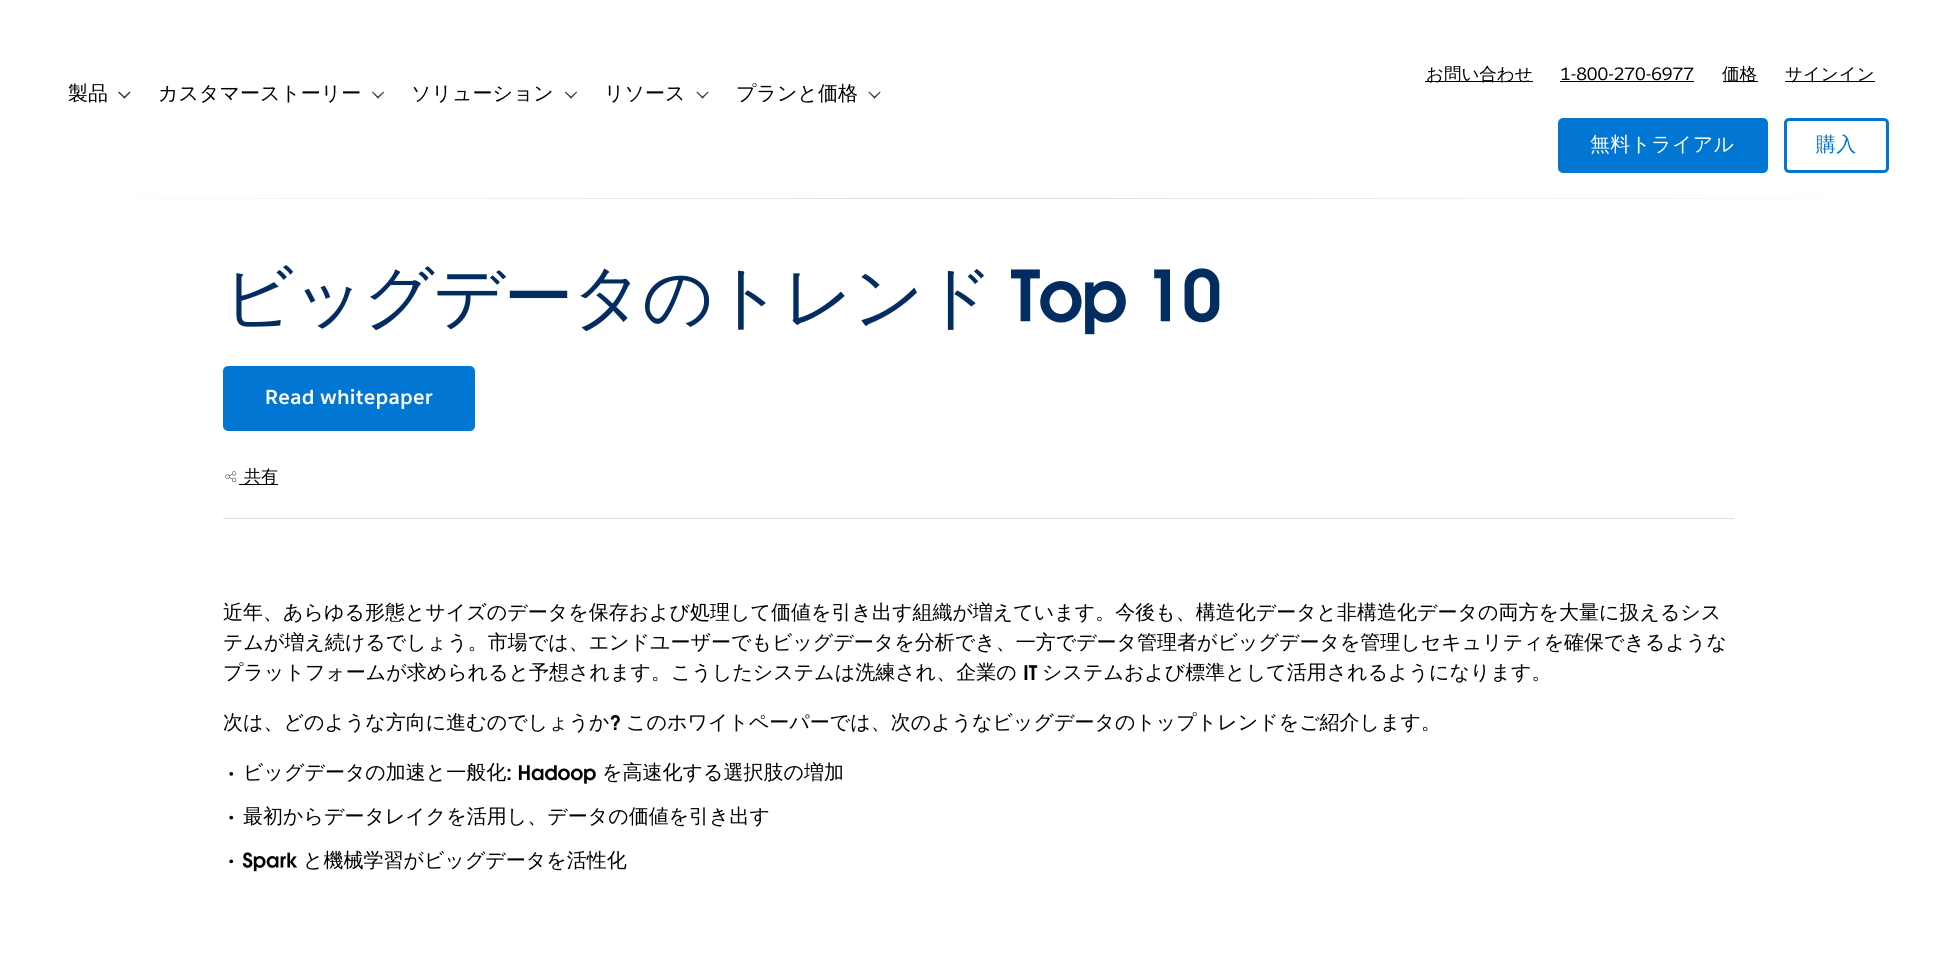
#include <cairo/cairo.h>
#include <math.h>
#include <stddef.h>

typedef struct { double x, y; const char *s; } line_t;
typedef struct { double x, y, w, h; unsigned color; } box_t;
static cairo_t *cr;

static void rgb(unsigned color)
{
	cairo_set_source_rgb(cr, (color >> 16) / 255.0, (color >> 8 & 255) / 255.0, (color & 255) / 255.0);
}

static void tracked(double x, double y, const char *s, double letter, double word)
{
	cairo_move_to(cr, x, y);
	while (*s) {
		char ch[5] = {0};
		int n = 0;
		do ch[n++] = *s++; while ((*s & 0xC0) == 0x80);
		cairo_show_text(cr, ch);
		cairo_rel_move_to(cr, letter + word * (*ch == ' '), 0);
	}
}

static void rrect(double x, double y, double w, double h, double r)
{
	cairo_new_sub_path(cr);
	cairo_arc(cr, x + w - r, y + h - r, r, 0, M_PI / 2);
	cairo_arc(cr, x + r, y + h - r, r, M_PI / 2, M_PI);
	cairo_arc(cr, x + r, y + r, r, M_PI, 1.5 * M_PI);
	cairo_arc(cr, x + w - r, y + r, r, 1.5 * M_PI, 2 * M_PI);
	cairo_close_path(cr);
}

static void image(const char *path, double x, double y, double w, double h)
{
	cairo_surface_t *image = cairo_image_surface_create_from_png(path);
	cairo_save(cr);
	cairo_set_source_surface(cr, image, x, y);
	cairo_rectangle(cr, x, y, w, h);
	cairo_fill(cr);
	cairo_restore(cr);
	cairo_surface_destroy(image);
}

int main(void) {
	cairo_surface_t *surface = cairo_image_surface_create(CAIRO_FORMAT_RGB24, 1956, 970);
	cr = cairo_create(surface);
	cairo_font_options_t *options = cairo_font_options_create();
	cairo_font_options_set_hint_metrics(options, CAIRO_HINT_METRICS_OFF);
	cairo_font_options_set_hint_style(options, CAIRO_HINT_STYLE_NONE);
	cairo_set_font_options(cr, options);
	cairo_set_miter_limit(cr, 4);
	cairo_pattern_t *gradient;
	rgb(0xffffff);
	cairo_paint(cr);
	rgb(0x333333);
	cairo_new_path(cr);
	cairo_move_to(cr, 129.5, 91.5);
	cairo_line_to(cr, 130.5, 92.5);
	cairo_line_to(cr, 124.5, 98.5);
	cairo_line_to(cr, 123.5, 97.5);
	cairo_close_path(cr);
	cairo_fill(cr);
	cairo_new_path(cr);
	cairo_move_to(cr, 119, 91.5);
	cairo_line_to(cr, 125.5, 97.5);
	cairo_line_to(cr, 124.5, 98.5);
	cairo_line_to(cr, 118, 92.5);
	cairo_close_path(cr);
	cairo_fill(cr);
	cairo_new_path(cr);
	cairo_move_to(cr, 383.5, 91.5);
	cairo_line_to(cr, 384, 92.5);
	cairo_line_to(cr, 378, 98.5);
	cairo_line_to(cr, 377, 97.5);
	cairo_close_path(cr);
	cairo_fill(cr);
	cairo_new_path(cr);
	cairo_move_to(cr, 372.5, 91.5);
	cairo_line_to(cr, 379, 97.5);
	cairo_line_to(cr, 378, 98.5);
	cairo_line_to(cr, 372, 92.5);
	cairo_close_path(cr);
	cairo_fill(cr);
	cairo_new_path(cr);
	cairo_move_to(cr, 576.5, 91.5);
	cairo_line_to(cr, 577, 92.5);
	cairo_line_to(cr, 571, 98.5);
	cairo_line_to(cr, 570, 97.5);
	cairo_close_path(cr);
	cairo_fill(cr);
	cairo_new_path(cr);
	cairo_move_to(cr, 565.5, 91.5);
	cairo_line_to(cr, 572, 97.5);
	cairo_line_to(cr, 571, 98.5);
	cairo_line_to(cr, 565, 92.5);
	cairo_close_path(cr);
	cairo_fill(cr);
	cairo_new_path(cr);
	cairo_move_to(cr, 708, 91.5);
	cairo_line_to(cr, 708.5, 92.5);
	cairo_line_to(cr, 702.5, 98.5);
	cairo_line_to(cr, 701.5, 97.5);
	cairo_close_path(cr);
	cairo_fill(cr);
	cairo_new_path(cr);
	cairo_move_to(cr, 697, 91.5);
	cairo_line_to(cr, 703.5, 97.5);
	cairo_line_to(cr, 702.5, 98.5);
	cairo_line_to(cr, 696.5, 92.5);
	cairo_close_path(cr);
	cairo_fill(cr);
	cairo_new_path(cr);
	cairo_move_to(cr, 880, 91.5);
	cairo_line_to(cr, 880.5, 92.5);
	cairo_line_to(cr, 874.5, 98.5);
	cairo_line_to(cr, 873.5, 97.5);
	cairo_close_path(cr);
	cairo_fill(cr);
	cairo_new_path(cr);
	cairo_move_to(cr, 869, 91.5);
	cairo_line_to(cr, 875.5, 97.5);
	cairo_line_to(cr, 874.5, 98.5);
	cairo_line_to(cr, 868.5, 92.5);
	cairo_close_path(cr);
	cairo_fill(cr);
	{
		static const box_t items[] = {
			{1425, 81, 108, 1, 0x000000},
			{1560, 81, 134, 1, 0x000000},
			{1723, 81, 35, 1, 0x000000},
			{1785, 81, 90, 1, 0x000000},
		};
		for (size_t i = 0; i < sizeof items / sizeof *items; i++) {
			rgb(items[i].color);
			cairo_rectangle(cr, items[i].x, items[i].y, items[i].w, items[i].h);
			cairo_fill(cr);
		}
	}
	rgb(0x0176d3);
	rrect(1559.5, 119.5, 207, 52, 3.5);
	cairo_fill_preserve(cr);
	cairo_set_line_width(cr, 3);
	cairo_stroke(cr);
	rrect(1785.5, 119.5, 102, 52, 3.5);
	cairo_stroke(cr);
	gradient = cairo_pattern_create_linear(0, 198, 1956, 198);
	cairo_pattern_add_color_stop_rgba(gradient, 0, 1, 1, 1, 1);
	cairo_pattern_add_color_stop_rgba(gradient, 0.5, 0.871, 0.871, 0.871, 1);
	cairo_pattern_add_color_stop_rgba(gradient, 1, 1, 1, 1, 1);
	cairo_set_source(cr, gradient);
	cairo_pattern_destroy(gradient);
	cairo_rectangle(cr, 74, 198, 1808, 1);
	cairo_fill(cr);
	image("img/1.png", 1011, 268, 209, 67);
	rgb(0xdedede);
	cairo_rectangle(cr, 223, 518, 1511, 1);
	cairo_fill(cr);
	rgb(0x0176d3);
	rrect(224.5, 367.5, 249, 62, 3.5);
	cairo_fill_preserve(cr);
	cairo_stroke(cr);
	image("img/2.png", 225, 471, 12, 12);
	rgb(0x000000);
	cairo_rectangle(cr, 239, 484, 39, 1);
	cairo_fill(cr);
	image("img/3.png", 1024, 665, 14, 15);
	image("img/4.png", 610, 714, 10, 16);
	image("img/5.png", 229, 772, 5, 4);
	image("img/6.png", 507, 768, 4, 12);
	image("img/7.png", 518, 765, 78, 19);
	image("img/8.png", 229, 815, 5, 5);
	image("img/9.png", 229, 859, 5, 5);
	image("img/10.png", 242, 852, 56, 20);
	cairo_select_font_face(cr, "WenQuanYi Zen Hei Medium", CAIRO_FONT_SLANT_NORMAL, CAIRO_FONT_WEIGHT_NORMAL);
	cairo_set_font_size(cr, 20);
	{
		static const line_t items[] = {
			{68, 100, "製品"},
			{158, 100, "カスタマーストーリー"},
			{411, 100, "ソリューション"},
			{604, 100, "リソース"},
			{736, 100, "プランと価格"},
		};
		for (size_t i = 0; i < sizeof items / sizeof *items; i++) {
			cairo_move_to(cr, items[i].x, items[i].y);
			cairo_show_text(cr, items[i].s);
		}
	}
	cairo_set_font_size(cr, 17.5);
	cairo_move_to(cr, 1426, 80);
	cairo_show_text(cr, "お問い合わせ");
	cairo_select_font_face(cr, "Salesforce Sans", CAIRO_FONT_SLANT_NORMAL, CAIRO_FONT_WEIGHT_NORMAL);
	cairo_move_to(cr, 1560, 80);
	cairo_show_text(cr, "1-800-270-6977");
	cairo_select_font_face(cr, "WenQuanYi Zen Hei Medium", CAIRO_FONT_SLANT_NORMAL, CAIRO_FONT_WEIGHT_NORMAL);
	cairo_move_to(cr, 1722, 80);
	cairo_show_text(cr, "価格");
	cairo_move_to(cr, 1785, 80);
	cairo_show_text(cr, "サインイン");
	cairo_set_font_size(cr, 20);
	rgb(0xffffff);
	tracked(1590, 151, "無料トライアル", 0.25, 0);
	rgb(0x0176d3);
	tracked(1816, 151, "購入", 0.25, 0);
	cairo_set_font_size(cr, 70);
	rgb(0x032d60);
	tracked(223, 321, "ビッグデータのトレンド", -1.5, 0);
	cairo_select_font_face(cr, "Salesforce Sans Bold", CAIRO_FONT_SLANT_NORMAL, CAIRO_FONT_WEIGHT_BOLD);
	cairo_set_font_size(cr, 20);
	rgb(0xffffff);
	tracked(265, 404, "Read whitepaper", 0.25, 0);
	cairo_select_font_face(cr, "WenQuanYi Zen Hei Medium", CAIRO_FONT_SLANT_NORMAL, CAIRO_FONT_WEIGHT_NORMAL);
	cairo_set_font_size(cr, 17);
	rgb(0x000000);
	cairo_move_to(cr, 244, 482);
	cairo_show_text(cr, "共有");
	cairo_set_font_size(cr, 20);
	{
		static const line_t items[] = {
			{223, 619, "近年、あらゆる形態とサイズのデータを保存および処理して価値を引き出す組織が増えています。今後も、構造化データと非構造化データの両方を大量に扱えるシス"},
			{223, 649, "テムが増え続けるでしょう。市場では、エンドユーザーでもビッグデータを分析でき、一方でデータ管理者がビッグデータを管理しセキュリティを確保できるような"},
			{223, 679, "プラットフォームが求められると予想されます。こうしたシステムは洗練され、企業の"},
			{1042, 679, "システムおよび標準として活用されるようになります。"},
			{223, 729, "次は、どのような方向に進むのでしょうか"},
			{626, 729, "このホワイトペーパーでは、次のようなビッグデータのトップトレンドをご紹介します。"},
			{243, 779, "ビッグデータの加速と一般化"},
			{602, 779, "を高速化する選択肢の増加"},
			{243, 823, "最初からデータレイクを活用し、データの価値を引き出す"},
			{303, 867, "と機械学習がビッグデータを活性化"},
		};
		for (size_t i = 0; i < sizeof items / sizeof *items; i++) {
			cairo_move_to(cr, items[i].x, items[i].y);
			cairo_show_text(cr, items[i].s);
		}
	}
	cairo_surface_write_to_png(surface, "page.png");
	cairo_font_options_destroy(options);
	cairo_destroy(cr);
	cairo_surface_destroy(surface);
	return 0;
}
